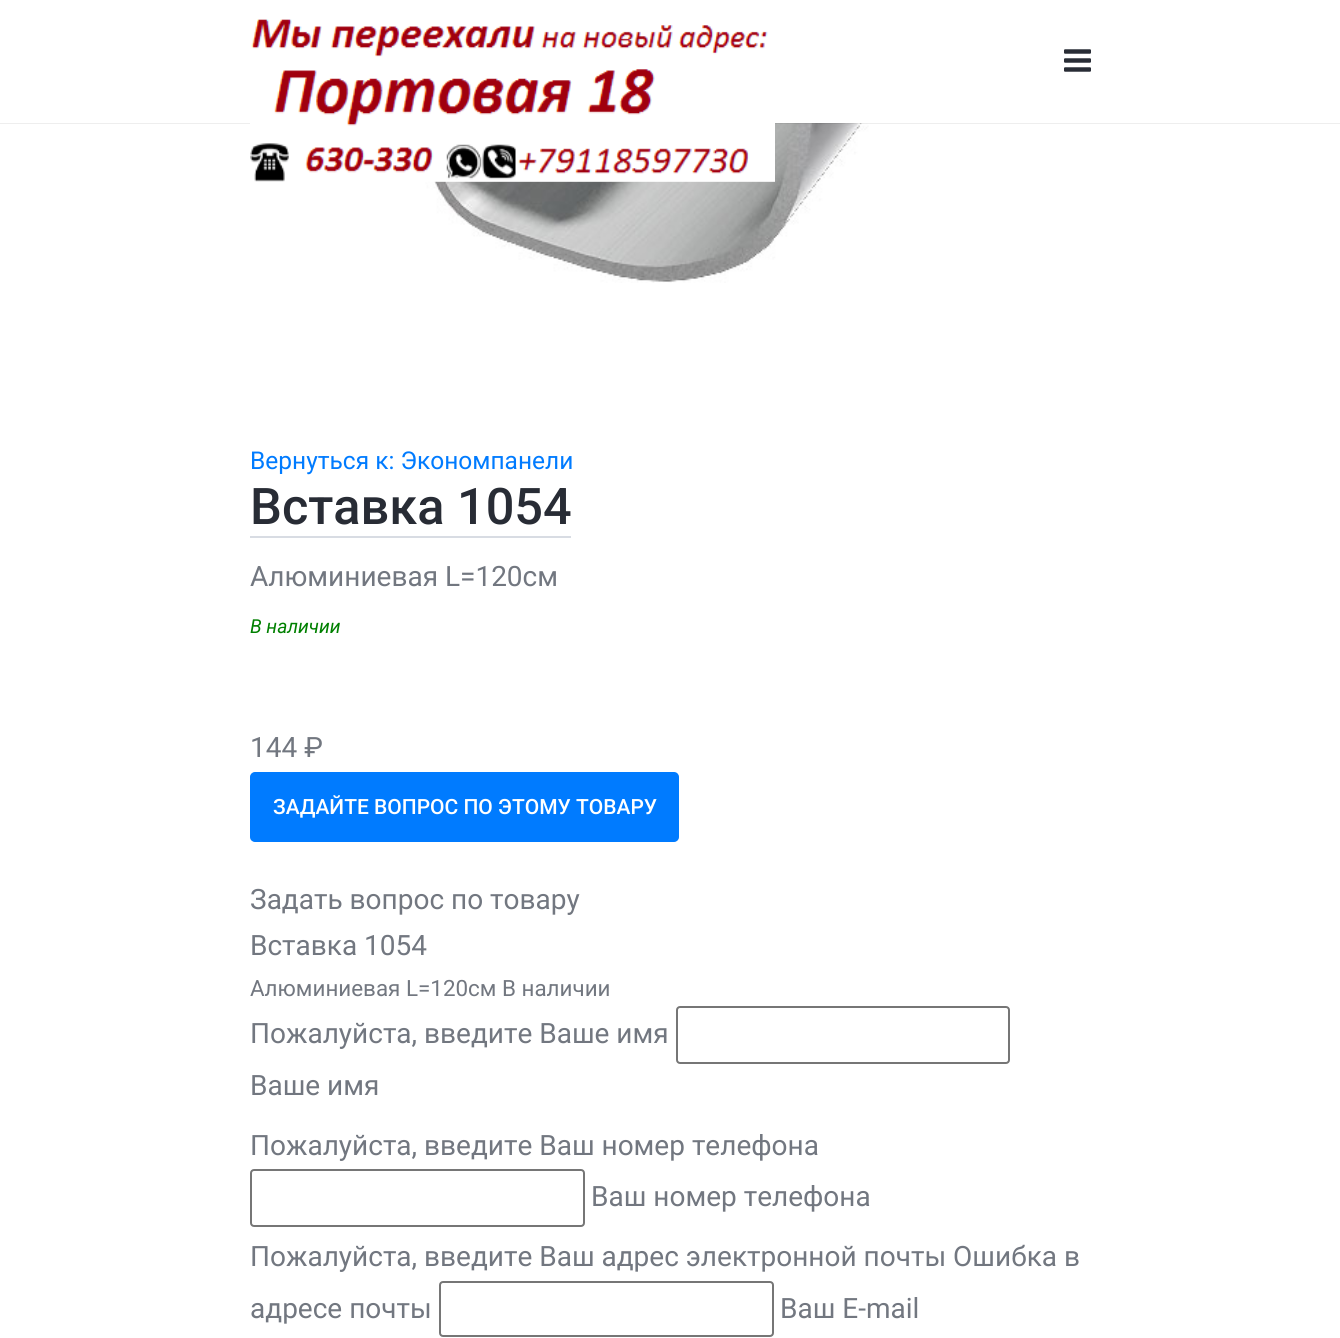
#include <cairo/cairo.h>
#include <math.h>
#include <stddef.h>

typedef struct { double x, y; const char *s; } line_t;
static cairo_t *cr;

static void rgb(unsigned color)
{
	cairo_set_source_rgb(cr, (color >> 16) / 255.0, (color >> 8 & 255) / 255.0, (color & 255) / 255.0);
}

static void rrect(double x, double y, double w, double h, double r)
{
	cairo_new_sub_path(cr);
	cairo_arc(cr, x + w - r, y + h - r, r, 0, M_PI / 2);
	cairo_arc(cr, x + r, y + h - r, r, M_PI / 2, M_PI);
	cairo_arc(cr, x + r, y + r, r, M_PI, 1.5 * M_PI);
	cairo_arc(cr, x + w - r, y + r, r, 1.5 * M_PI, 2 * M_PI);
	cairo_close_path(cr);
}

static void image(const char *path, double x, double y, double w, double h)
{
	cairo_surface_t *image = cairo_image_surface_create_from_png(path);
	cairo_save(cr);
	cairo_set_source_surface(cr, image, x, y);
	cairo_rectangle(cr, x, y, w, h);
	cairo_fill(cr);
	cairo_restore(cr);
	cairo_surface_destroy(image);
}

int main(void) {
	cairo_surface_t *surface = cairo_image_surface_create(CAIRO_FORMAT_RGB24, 1340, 1338);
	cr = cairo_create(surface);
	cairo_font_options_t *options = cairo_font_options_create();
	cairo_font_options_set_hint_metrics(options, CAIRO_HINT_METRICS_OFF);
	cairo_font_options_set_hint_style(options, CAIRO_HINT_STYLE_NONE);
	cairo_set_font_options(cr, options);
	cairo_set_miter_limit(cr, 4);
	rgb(0xffffff);
	cairo_paint(cr);
	image("img/3.png", 425, 123, 536, 160);
	cairo_set_source_rgba(cr, 0, 0, 0, 0.07);
	cairo_new_path(cr);
	cairo_move_to(cr, 0, 122);
	cairo_line_to(cr, 0, 124);
	cairo_line_to(cr, 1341, 124);
	cairo_line_to(cr, 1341, 2);
	cairo_line_to(cr, 1340, 2);
	cairo_line_to(cr, 1340, 122);
	cairo_close_path(cr);
	cairo_fill(cr);
	rgb(0xffffff);
	cairo_rectangle(cr, 0, 122, 1340, 1);
	cairo_fill(cr);
	image("img/1.png", 250, 19, 525, 163);
	image("img/2.png", 1064, 49, 27, 23);
	rgb(0xd8dce3);
	cairo_rectangle(cr, 250, 536, 321, 2);
	cairo_fill(cr);
	rgb(0x007bff);
	rrect(251, 773, 427, 68, 4);
	cairo_fill_preserve(cr);
	cairo_stroke(cr);
	rrect(677, 1007, 332, 56, 3);
	rgb(0x767676);
	cairo_stroke(cr);
	rrect(251, 1170, 333, 56, 3);
	cairo_stroke(cr);
	rrect(440, 1282, 333, 54, 3);
	cairo_stroke(cr);
	cairo_select_font_face(cr, "Roboto", CAIRO_FONT_SLANT_NORMAL, CAIRO_FONT_WEIGHT_NORMAL);
	cairo_set_font_size(cr, 24.5);
	rgb(0x007bff);
	cairo_move_to(cr, 250, 469);
	cairo_show_text(cr, "Вернуться к: Экономпанели");
	cairo_select_font_face(cr, "Roboto Medium", CAIRO_FONT_SLANT_NORMAL, CAIRO_FONT_WEIGHT_NORMAL);
	cairo_set_font_size(cr, 50.5);
	rgb(0x282c35);
	cairo_move_to(cr, 250, 524);
	cairo_show_text(cr, "Вставка 1054");
	cairo_select_font_face(cr, "Roboto", CAIRO_FONT_SLANT_NORMAL, CAIRO_FONT_WEIGHT_NORMAL);
	cairo_set_font_size(cr, 28);
	rgb(0x727780);
	cairo_move_to(cr, 250, 586);
	cairo_show_text(cr, "Алюминиевая L=120см");
	cairo_select_font_face(cr, "Roboto", CAIRO_FONT_SLANT_ITALIC, CAIRO_FONT_WEIGHT_NORMAL);
	cairo_set_font_size(cr, 19.25);
	rgb(0x008000);
	cairo_move_to(cr, 250, 633);
	cairo_show_text(cr, "В наличии");
	cairo_select_font_face(cr, "Roboto", CAIRO_FONT_SLANT_NORMAL, CAIRO_FONT_WEIGHT_NORMAL);
	cairo_set_font_size(cr, 28);
	rgb(0x727780);
	cairo_move_to(cr, 250, 757);
	cairo_show_text(cr, "144 ₽");
	cairo_select_font_face(cr, "Roboto Medium", CAIRO_FONT_SLANT_NORMAL, CAIRO_FONT_WEIGHT_NORMAL);
	cairo_set_font_size(cr, 21);
	rgb(0xffffff);
	cairo_move_to(cr, 273, 814);
	cairo_show_text(cr, "ЗАДАЙТЕ ВОПРОС ПО ЭТОМУ ТОВАРУ");
	cairo_select_font_face(cr, "Roboto", CAIRO_FONT_SLANT_NORMAL, CAIRO_FONT_WEIGHT_NORMAL);
	cairo_set_font_size(cr, 28);
	rgb(0x727780);
	cairo_move_to(cr, 250, 909);
	cairo_show_text(cr, "Задать вопрос по товару");
	cairo_move_to(cr, 250, 955);
	cairo_show_text(cr, "Вставка 1054");
	cairo_set_font_size(cr, 22.4);
	cairo_move_to(cr, 250, 996);
	cairo_show_text(cr, "Алюминиевая L=120см В наличии");
	cairo_set_font_size(cr, 28);
	{
		static const line_t items[] = {
			{250, 1043, "Пожалуйста, введите Ваше имя"},
			{250, 1095, "Ваше имя"},
			{250, 1155, "Пожалуйста, введите Ваш номер телефона"},
			{591, 1206, "Ваш номер телефона"},
			{250, 1266, "Пожалуйста, введите Ваш адрес электронной почты Ошибка в"},
			{250, 1318, "адресе почты"},
			{780, 1318, "Ваш E-mail"},
		};
		for (size_t i = 0; i < sizeof items / sizeof *items; i++) {
			cairo_move_to(cr, items[i].x, items[i].y);
			cairo_show_text(cr, items[i].s);
		}
	}
	cairo_surface_write_to_png(surface, "page.png");
	cairo_font_options_destroy(options);
	cairo_destroy(cr);
	cairo_surface_destroy(surface);
	return 0;
}
